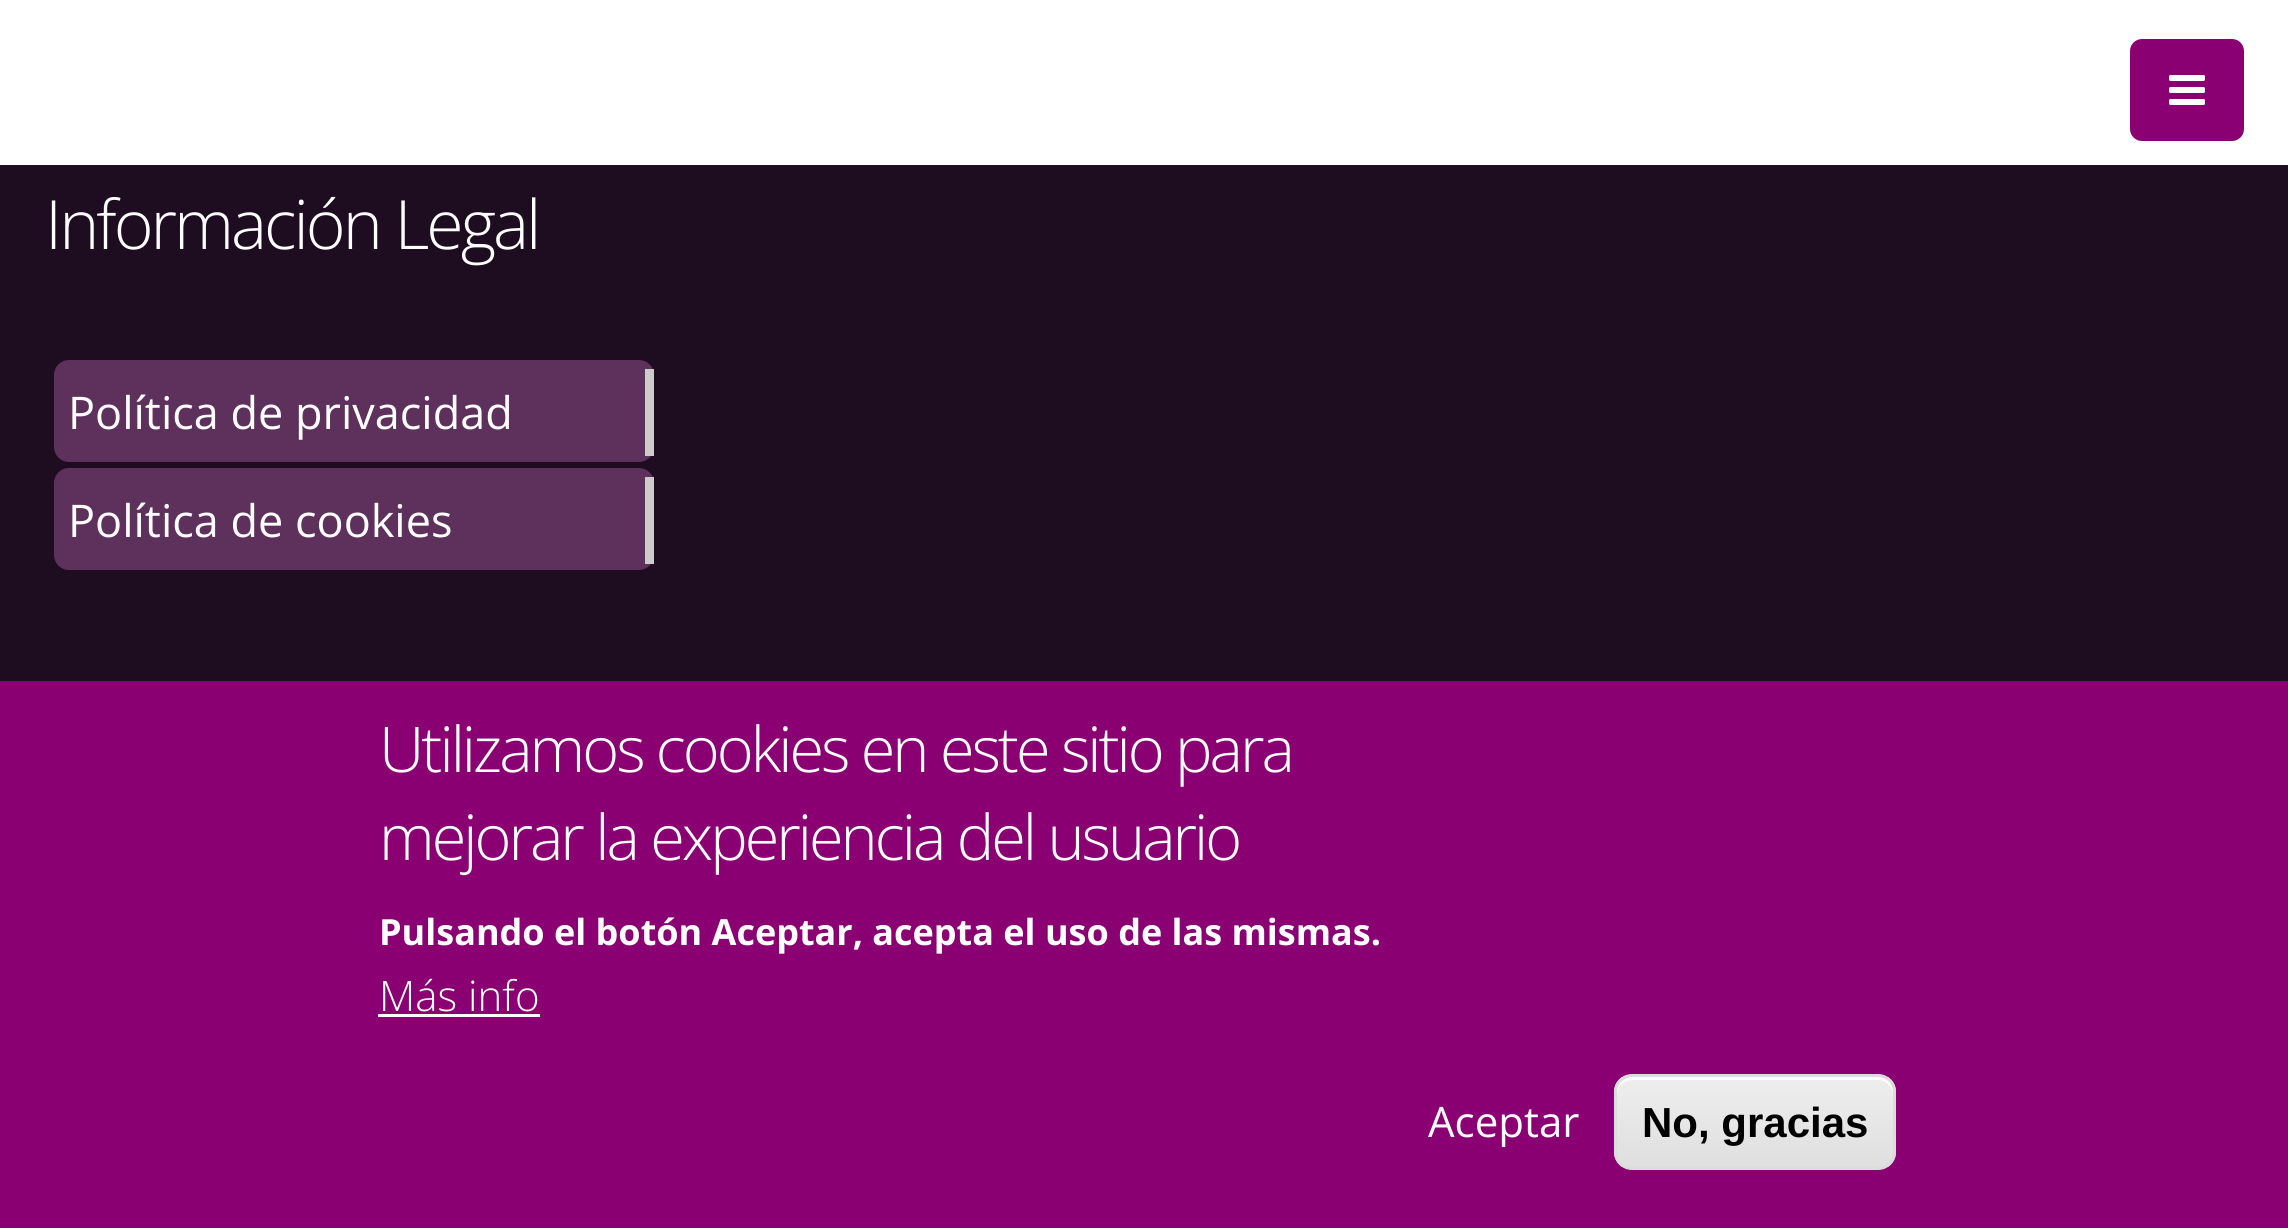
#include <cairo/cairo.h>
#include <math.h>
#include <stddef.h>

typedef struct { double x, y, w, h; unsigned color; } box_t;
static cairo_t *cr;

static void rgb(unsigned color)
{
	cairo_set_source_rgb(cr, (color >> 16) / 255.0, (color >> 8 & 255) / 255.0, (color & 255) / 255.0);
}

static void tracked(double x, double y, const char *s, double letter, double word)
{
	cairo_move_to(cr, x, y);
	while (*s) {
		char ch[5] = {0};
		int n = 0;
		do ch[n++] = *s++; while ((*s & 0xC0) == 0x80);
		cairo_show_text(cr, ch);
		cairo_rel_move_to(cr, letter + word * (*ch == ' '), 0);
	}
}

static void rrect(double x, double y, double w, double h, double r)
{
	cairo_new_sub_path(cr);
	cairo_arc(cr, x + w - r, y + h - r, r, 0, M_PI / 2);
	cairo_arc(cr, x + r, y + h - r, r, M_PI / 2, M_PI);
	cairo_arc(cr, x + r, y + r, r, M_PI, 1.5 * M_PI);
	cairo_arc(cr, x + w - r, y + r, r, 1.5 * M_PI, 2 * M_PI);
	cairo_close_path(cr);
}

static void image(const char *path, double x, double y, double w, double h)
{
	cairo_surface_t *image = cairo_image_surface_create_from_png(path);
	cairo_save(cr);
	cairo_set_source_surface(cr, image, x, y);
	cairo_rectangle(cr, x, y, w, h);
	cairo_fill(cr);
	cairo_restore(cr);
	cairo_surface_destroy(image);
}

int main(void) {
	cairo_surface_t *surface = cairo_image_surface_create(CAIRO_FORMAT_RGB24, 2288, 1228);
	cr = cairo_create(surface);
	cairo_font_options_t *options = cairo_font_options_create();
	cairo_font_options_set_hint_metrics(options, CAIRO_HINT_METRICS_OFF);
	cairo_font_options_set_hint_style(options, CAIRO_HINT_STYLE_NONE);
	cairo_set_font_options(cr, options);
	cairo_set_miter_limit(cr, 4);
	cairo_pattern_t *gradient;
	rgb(0x1e0d21);
	cairo_paint(cr);
	rgb(0xffffff);
	cairo_rectangle(cr, 0, 0, 2288, 165);
	cairo_fill(cr);
	rgb(0x8a0072);
	rrect(2130, 39, 114, 102, 12);
	cairo_fill(cr);
	image("img/1.png", 2169, 75, 36, 30);
	rgb(0x5e305c);
	rrect(54, 360, 600, 102, 15);
	cairo_fill(cr);
	rgb(0xcccccc);
	cairo_rectangle(cr, 645, 369, 9, 87);
	cairo_fill(cr);
	rgb(0x5e305c);
	rrect(54, 468, 600, 102, 15);
	cairo_fill(cr);
	{
		static const box_t items[] = {
			{645, 477, 9, 87, 0xcccccc},
			{0, 681, 2288, 547, 0x8a0072},
			{378, 1014, 162, 3, 0xffffff},
		};
		for (size_t i = 0; i < sizeof items / sizeof *items; i++) {
			rgb(items[i].color);
			cairo_rectangle(cr, items[i].x, items[i].y, items[i].w, items[i].h);
			cairo_fill(cr);
		}
	}
	cairo_save(cr);
	rrect(1614, 1074, 282, 96, 18);
	cairo_clip(cr);
	gradient = cairo_pattern_create_linear(1755, 1077, 1755, 1167);
	cairo_pattern_add_color_stop_rgba(gradient, 0.05, 0.929, 0.929, 0.929, 1);
	cairo_pattern_add_color_stop_rgba(gradient, 1, 0.875, 0.875, 0.875, 1);
	cairo_set_source(cr, gradient);
	cairo_pattern_destroy(gradient);
	cairo_rectangle(cr, 1614, 1077, 282, 90);
	cairo_fill(cr);
	cairo_restore(cr);
	cairo_new_path(cr);
	cairo_move_to(cr, 1632, 1080);
	cairo_line_to(cr, 1878, 1080);
	cairo_curve_to(cr, 1886, 1080, 1893, 1087, 1893, 1095);
	cairo_line_to(cr, 1893, 1092);
	cairo_curve_to(cr, 1893, 1084, 1886, 1077, 1878, 1077);
	cairo_line_to(cr, 1632, 1077);
	cairo_curve_to(cr, 1624, 1077, 1617, 1084, 1617, 1092);
	cairo_line_to(cr, 1617, 1095);
	cairo_curve_to(cr, 1617, 1087, 1624, 1080, 1632, 1080);
	cairo_close_path(cr);
	cairo_fill(cr);
	rrect(1615.5, 1075.5, 279, 93, 16.5);
	rgb(0xdcdcdc);
	cairo_set_line_width(cr, 3);
	cairo_stroke(cr);
	cairo_select_font_face(cr, "Open Sans Light", CAIRO_FONT_SLANT_NORMAL, CAIRO_FONT_WEIGHT_NORMAL);
	cairo_set_font_size(cr, 68);
	rgb(0xffffff);
	tracked(45, 249, "Información Legal", -3, 0);
	cairo_select_font_face(cr, "Open Sans", CAIRO_FONT_SLANT_NORMAL, CAIRO_FONT_WEIGHT_NORMAL);
	cairo_set_font_size(cr, 45);
	cairo_move_to(cr, 68, 429);
	cairo_show_text(cr, "Política de privacidad");
	cairo_move_to(cr, 68, 537);
	cairo_show_text(cr, "Política de cookies");
	cairo_select_font_face(cr, "Open Sans Light", CAIRO_FONT_SLANT_NORMAL, CAIRO_FONT_WEIGHT_NORMAL);
	cairo_set_font_size(cr, 63);
	tracked(379, 772, "Utilizamos cookies en este sitio para", -3, 0);
	tracked(379, 860, "mejorar la experiencia del usuario", -3, 0);
	cairo_select_font_face(cr, "Open Sans", CAIRO_FONT_SLANT_NORMAL, CAIRO_FONT_WEIGHT_BOLD);
	cairo_set_font_size(cr, 36);
	cairo_move_to(cr, 379, 945);
	cairo_show_text(cr, "Pulsando el botón Aceptar, acepta el uso de las mismas.");
	cairo_select_font_face(cr, "Open Sans Light", CAIRO_FONT_SLANT_NORMAL, CAIRO_FONT_WEIGHT_NORMAL);
	cairo_set_font_size(cr, 42);
	cairo_move_to(cr, 379, 1011);
	cairo_show_text(cr, "Más info");
	cairo_select_font_face(cr, "Open Sans", CAIRO_FONT_SLANT_NORMAL, CAIRO_FONT_WEIGHT_NORMAL);
	cairo_move_to(cr, 1428, 1137);
	cairo_show_text(cr, "Aceptar");
	cairo_select_font_face(cr, "Liberation Sans", CAIRO_FONT_SLANT_NORMAL, CAIRO_FONT_WEIGHT_BOLD);
	rgb(0x000000);
	cairo_move_to(cr, 1642, 1137);
	cairo_show_text(cr, "No, gracias");
	cairo_surface_write_to_png(surface, "page.png");
	cairo_font_options_destroy(options);
	cairo_destroy(cr);
	cairo_surface_destroy(surface);
	return 0;
}
